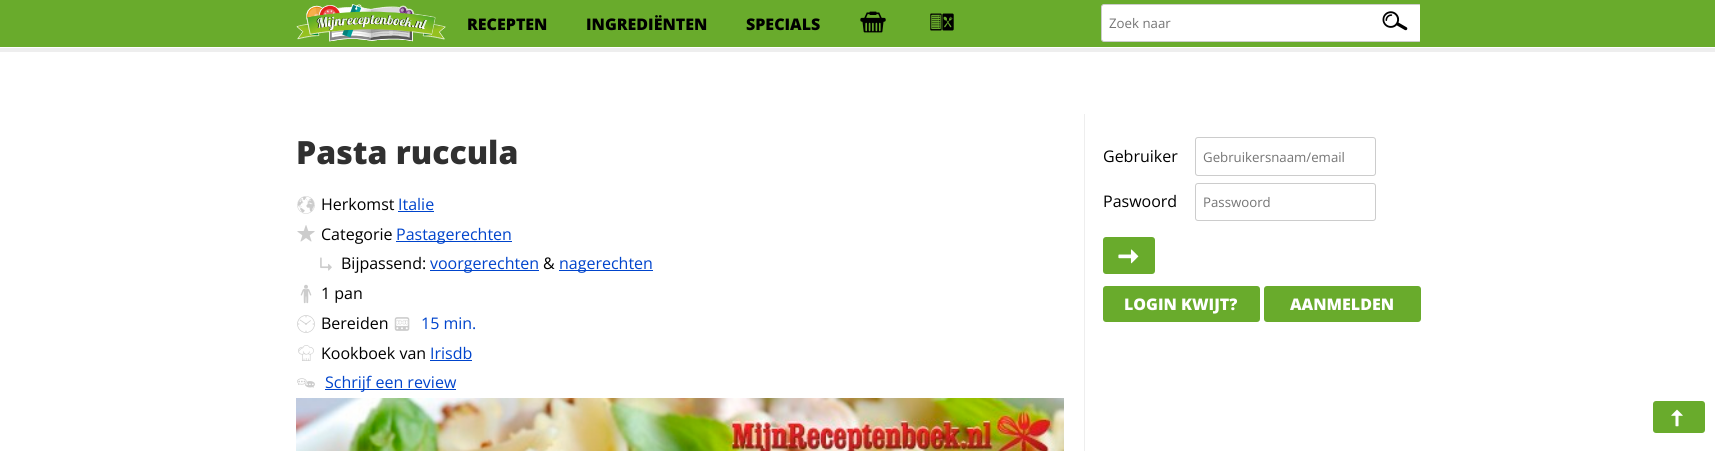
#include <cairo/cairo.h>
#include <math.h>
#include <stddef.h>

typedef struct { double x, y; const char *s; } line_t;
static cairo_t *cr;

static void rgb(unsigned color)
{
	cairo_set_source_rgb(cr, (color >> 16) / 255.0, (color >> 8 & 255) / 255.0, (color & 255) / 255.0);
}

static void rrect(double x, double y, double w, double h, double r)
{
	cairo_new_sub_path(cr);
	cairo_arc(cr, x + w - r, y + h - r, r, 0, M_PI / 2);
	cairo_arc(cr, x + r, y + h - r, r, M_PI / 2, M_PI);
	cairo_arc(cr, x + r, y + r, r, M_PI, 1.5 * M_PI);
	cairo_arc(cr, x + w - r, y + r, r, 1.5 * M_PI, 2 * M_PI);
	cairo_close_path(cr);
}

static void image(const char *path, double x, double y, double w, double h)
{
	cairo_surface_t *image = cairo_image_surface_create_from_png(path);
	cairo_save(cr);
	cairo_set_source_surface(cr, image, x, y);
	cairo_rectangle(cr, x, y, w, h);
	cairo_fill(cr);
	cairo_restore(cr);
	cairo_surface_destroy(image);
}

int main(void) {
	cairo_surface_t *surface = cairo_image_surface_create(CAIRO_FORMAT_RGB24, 1715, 451);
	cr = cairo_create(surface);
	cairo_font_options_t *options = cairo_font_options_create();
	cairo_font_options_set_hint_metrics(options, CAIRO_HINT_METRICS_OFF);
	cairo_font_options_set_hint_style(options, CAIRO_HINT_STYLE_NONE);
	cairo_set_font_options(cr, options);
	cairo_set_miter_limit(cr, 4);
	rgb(0xffffff);
	cairo_paint(cr);
	rgb(0x69ab2c);
	cairo_rectangle(cr, 0, 0, 1715, 47);
	cairo_fill(cr);
	image("img/1.png", 296, 4, 150, 38);
	image("img/2.png", 860, 11, 26, 22);
	image("img/3.png", 930, 13, 24, 18);
	cairo_save(cr);
	cairo_rectangle(cr, 1101, 0, 319, 45);
	cairo_clip(cr);
	rgb(0xffffff);
	rrect(1101.5, 4.5, 320, 37, 2.5);
	cairo_fill_preserve(cr);
	rgb(0xcccccc);
	cairo_set_line_width(cr, 1);
	cairo_stroke(cr);
	cairo_restore(cr);
	image("img/4.png", 1382, 11, 26, 20);
	rgb(0xeeeeee);
	cairo_rectangle(cr, 0, 48, 1715, 4);
	cairo_fill(cr);
	image("img/5.png", 297, 196, 18, 18);
	rgb(0x0044cc);
	cairo_rectangle(cr, 398, 211, 36, 1);
	cairo_fill(cr);
	image("img/6.png", 297, 225, 18, 17);
	cairo_rectangle(cr, 396, 241, 116, 1);
	cairo_fill(cr);
	image("img/7.png", 320, 257, 12, 14);
	cairo_rectangle(cr, 430, 270, 109, 1);
	cairo_fill(cr);
	cairo_rectangle(cr, 559, 270, 94, 1);
	cairo_fill(cr);
	image("img/8.png", 300, 284, 12, 20);
	image("img/9.png", 297, 315, 18, 18);
	image("img/10.png", 394, 317, 16, 14);
	image("img/11.png", 298, 345, 16, 16);
	cairo_rectangle(cr, 430, 360, 42, 1);
	cairo_fill(cr);
	image("img/12.png", 297, 378, 18, 10);
	cairo_rectangle(cr, 325, 389, 131, 1);
	cairo_fill(cr);
	image("img/13.png", 296, 398, 768, 53);
	rgb(0xeeeeee);
	cairo_rectangle(cr, 1084, 114, 1, 337);
	cairo_fill(cr);
	rrect(1195.5, 137.5, 180, 38, 2.5);
	rgb(0xcccccc);
	cairo_set_line_width(cr, 1);
	cairo_stroke(cr);
	rrect(1195.5, 183.5, 180, 37, 2.5);
	cairo_stroke(cr);
	rgb(0x69ab2c);
	rrect(1103, 237, 52, 37, 3);
	cairo_fill(cr);
	image("img/14.png", 1118, 249, 21, 15);
	rrect(1103, 286, 157, 36, 3);
	cairo_fill(cr);
	rrect(1264, 286, 157, 36, 3);
	cairo_fill(cr);
	rrect(1653, 401, 52, 32, 3);
	cairo_fill(cr);
	image("img/15.png", 1671, 409, 12, 18);
	cairo_select_font_face(cr, "Open Sans ExtraBold", CAIRO_FONT_SLANT_NORMAL, CAIRO_FONT_WEIGHT_NORMAL);
	cairo_set_font_size(cr, 16);
	rgb(0x000000);
	{
		static const line_t items[] = {
			{467, 30, "RECEPTEN"},
			{586, 30, "INGREDIËNTEN"},
			{746, 30, "SPECIALS"},
		};
		for (size_t i = 0; i < sizeof items / sizeof *items; i++) {
			cairo_move_to(cr, items[i].x, items[i].y);
			cairo_show_text(cr, items[i].s);
		}
	}
	cairo_select_font_face(cr, "Open Sans", CAIRO_FONT_SLANT_NORMAL, CAIRO_FONT_WEIGHT_NORMAL);
	cairo_set_font_size(cr, 13.25);
	rgb(0x757575);
	cairo_move_to(cr, 1109, 28);
	cairo_show_text(cr, "Zoek naar");
	cairo_select_font_face(cr, "Open Sans ExtraBold", CAIRO_FONT_SLANT_NORMAL, CAIRO_FONT_WEIGHT_NORMAL);
	cairo_set_font_size(cr, 32);
	rgb(0x303030);
	cairo_move_to(cr, 296, 164);
	cairo_show_text(cr, "Pasta ruccula");
	cairo_select_font_face(cr, "Open Sans", CAIRO_FONT_SLANT_NORMAL, CAIRO_FONT_WEIGHT_NORMAL);
	cairo_set_font_size(cr, 16);
	rgb(0x000000);
	cairo_move_to(cr, 321, 210);
	cairo_show_text(cr, "Herkomst");
	rgb(0x0044cc);
	cairo_move_to(cr, 398, 210);
	cairo_show_text(cr, "Italie");
	rgb(0x000000);
	cairo_move_to(cr, 321, 240);
	cairo_show_text(cr, "Categorie");
	rgb(0x0044cc);
	cairo_move_to(cr, 396, 240);
	cairo_show_text(cr, "Pastagerechten");
	rgb(0x000000);
	cairo_move_to(cr, 341, 269);
	cairo_show_text(cr, "Bijpassend:");
	rgb(0x0044cc);
	cairo_move_to(cr, 430, 269);
	cairo_show_text(cr, "voorgerechten");
	rgb(0x000000);
	cairo_move_to(cr, 543, 269);
	cairo_show_text(cr, "&");
	rgb(0x0044cc);
	cairo_move_to(cr, 559, 269);
	cairo_show_text(cr, "nagerechten");
	rgb(0x000000);
	cairo_move_to(cr, 321, 299);
	cairo_show_text(cr, "1 pan");
	cairo_move_to(cr, 321, 329);
	cairo_show_text(cr, "Bereiden");
	rgb(0x0044cc);
	cairo_move_to(cr, 421, 329);
	cairo_show_text(cr, "15 min.");
	rgb(0x000000);
	cairo_move_to(cr, 321, 359);
	cairo_show_text(cr, "Kookboek van");
	rgb(0x0044cc);
	cairo_move_to(cr, 430, 359);
	cairo_show_text(cr, "Irisdb");
	cairo_move_to(cr, 325, 388);
	cairo_show_text(cr, "Schrijf een review");
	rgb(0x000000);
	cairo_move_to(cr, 1103, 162);
	cairo_show_text(cr, "Gebruiker");
	cairo_set_font_size(cr, 13.25);
	rgb(0x757575);
	cairo_move_to(cr, 1203, 162);
	cairo_show_text(cr, "Gebruikersnaam/email");
	cairo_set_font_size(cr, 16);
	rgb(0x000000);
	cairo_move_to(cr, 1103, 207);
	cairo_show_text(cr, "Paswoord");
	cairo_set_font_size(cr, 13.25);
	rgb(0x757575);
	cairo_move_to(cr, 1203, 207);
	cairo_show_text(cr, "Passwoord");
	cairo_select_font_face(cr, "Open Sans ExtraBold", CAIRO_FONT_SLANT_NORMAL, CAIRO_FONT_WEIGHT_NORMAL);
	cairo_set_font_size(cr, 16);
	rgb(0xffffff);
	cairo_move_to(cr, 1124, 310);
	cairo_show_text(cr, "LOGIN KWIJT?");
	cairo_move_to(cr, 1290, 310);
	cairo_show_text(cr, "AANMELDEN");
	cairo_surface_write_to_png(surface, "page.png");
	cairo_font_options_destroy(options);
	cairo_destroy(cr);
	cairo_surface_destroy(surface);
	return 0;
}
